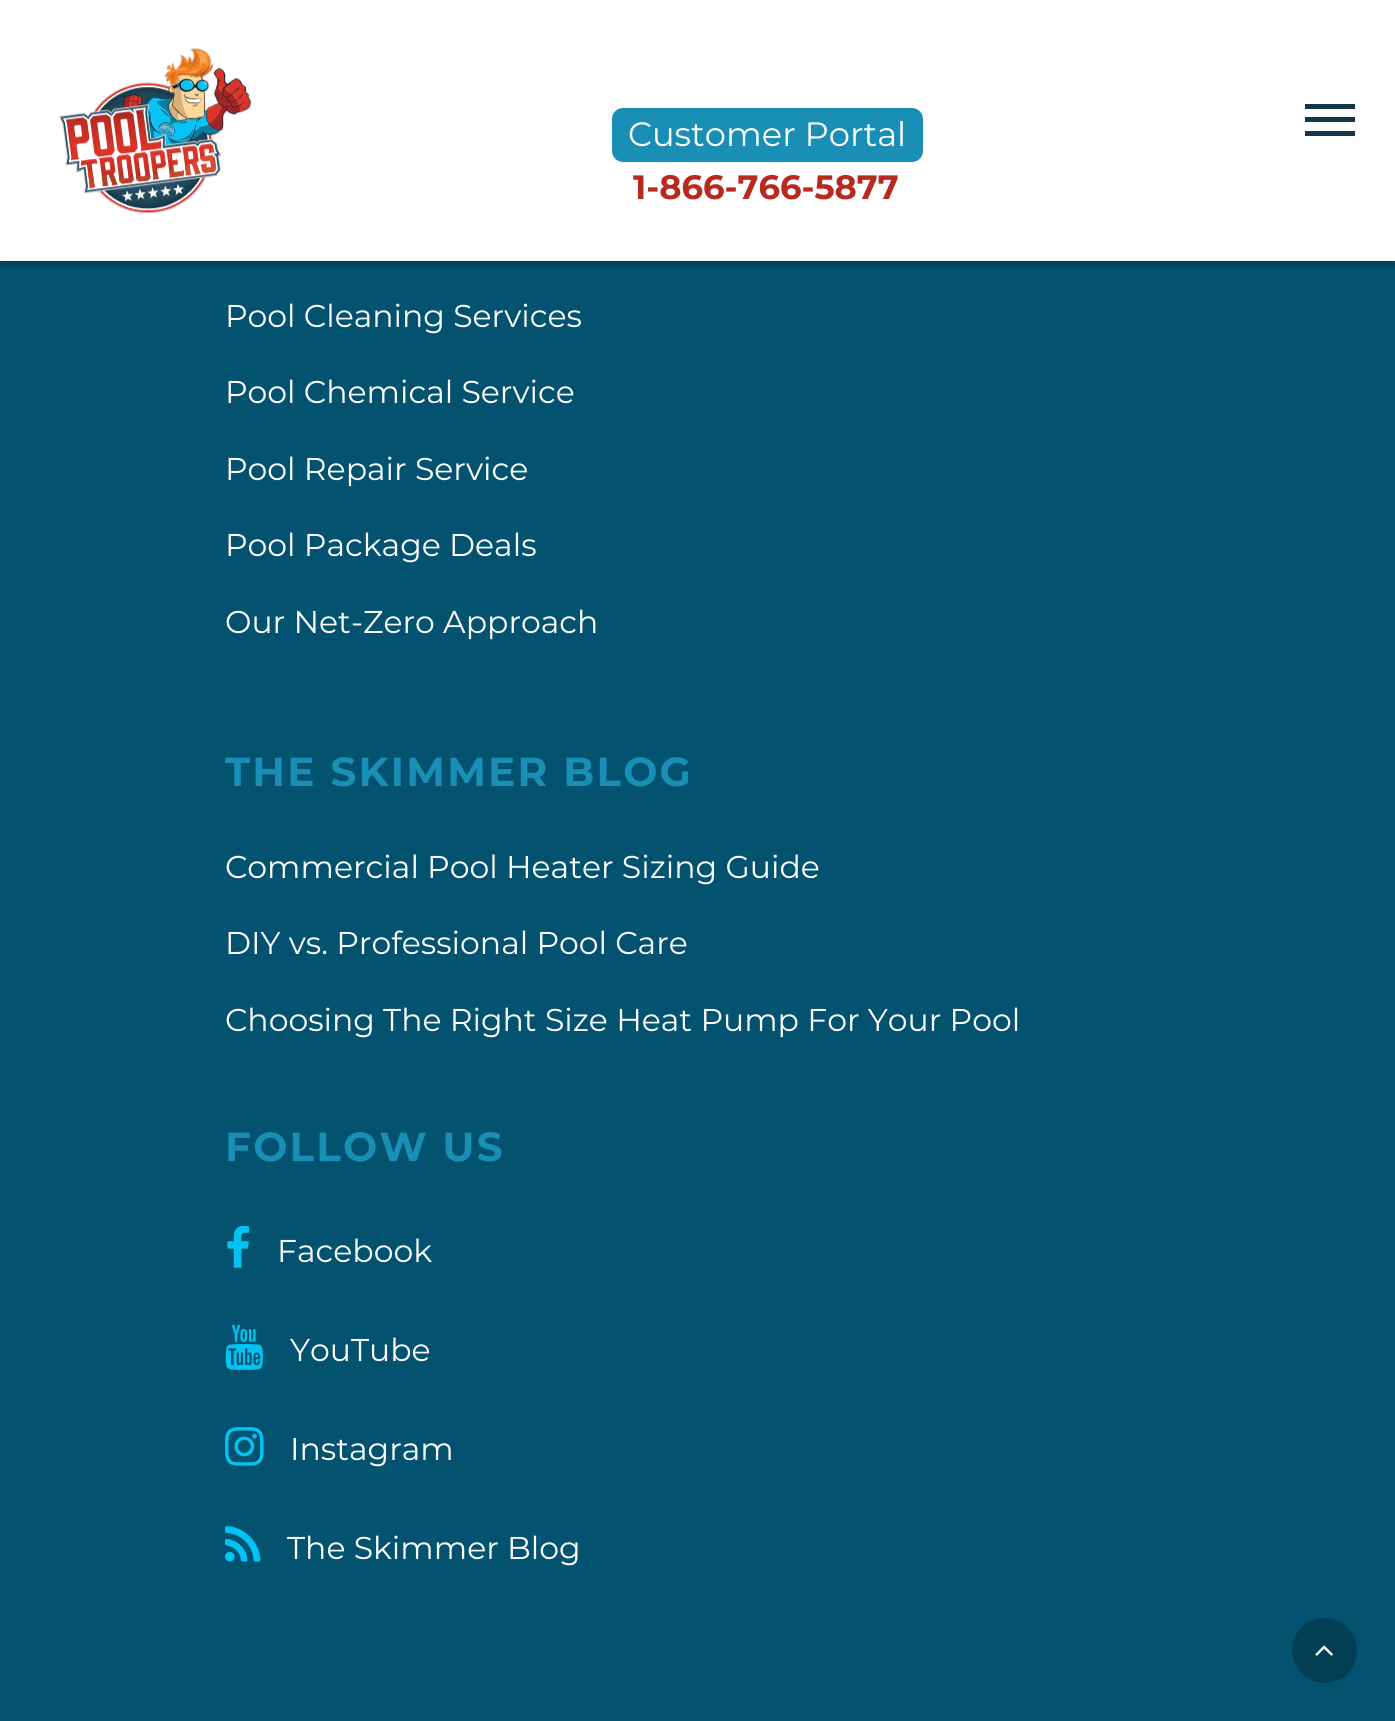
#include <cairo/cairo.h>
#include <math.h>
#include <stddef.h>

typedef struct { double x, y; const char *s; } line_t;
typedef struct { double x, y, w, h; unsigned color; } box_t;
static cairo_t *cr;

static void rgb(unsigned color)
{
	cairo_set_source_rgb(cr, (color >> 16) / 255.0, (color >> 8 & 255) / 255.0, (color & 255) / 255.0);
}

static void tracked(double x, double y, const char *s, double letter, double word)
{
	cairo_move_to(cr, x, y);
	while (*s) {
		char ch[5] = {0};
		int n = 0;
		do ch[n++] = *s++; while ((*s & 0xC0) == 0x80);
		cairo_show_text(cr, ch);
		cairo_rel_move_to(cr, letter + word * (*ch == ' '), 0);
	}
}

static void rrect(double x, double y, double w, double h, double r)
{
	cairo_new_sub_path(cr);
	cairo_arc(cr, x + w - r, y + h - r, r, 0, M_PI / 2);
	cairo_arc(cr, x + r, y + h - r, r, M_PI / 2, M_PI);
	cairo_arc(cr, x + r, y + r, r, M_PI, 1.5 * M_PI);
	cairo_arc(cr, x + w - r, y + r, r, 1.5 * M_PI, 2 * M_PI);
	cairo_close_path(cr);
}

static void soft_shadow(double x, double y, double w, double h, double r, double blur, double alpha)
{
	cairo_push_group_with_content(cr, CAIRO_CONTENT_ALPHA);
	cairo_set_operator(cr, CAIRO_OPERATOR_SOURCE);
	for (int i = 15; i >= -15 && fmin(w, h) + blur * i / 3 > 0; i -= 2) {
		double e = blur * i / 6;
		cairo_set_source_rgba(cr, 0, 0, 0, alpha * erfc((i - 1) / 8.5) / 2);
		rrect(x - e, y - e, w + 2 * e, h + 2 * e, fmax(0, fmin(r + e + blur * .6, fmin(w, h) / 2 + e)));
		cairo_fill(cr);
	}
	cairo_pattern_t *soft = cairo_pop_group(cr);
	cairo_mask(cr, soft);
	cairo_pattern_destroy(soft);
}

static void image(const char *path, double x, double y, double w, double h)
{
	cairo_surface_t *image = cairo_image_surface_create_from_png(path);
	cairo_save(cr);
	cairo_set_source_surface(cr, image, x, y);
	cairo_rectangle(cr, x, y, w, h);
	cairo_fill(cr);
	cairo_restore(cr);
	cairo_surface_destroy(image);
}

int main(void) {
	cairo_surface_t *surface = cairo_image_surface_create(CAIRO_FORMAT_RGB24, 1395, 1721);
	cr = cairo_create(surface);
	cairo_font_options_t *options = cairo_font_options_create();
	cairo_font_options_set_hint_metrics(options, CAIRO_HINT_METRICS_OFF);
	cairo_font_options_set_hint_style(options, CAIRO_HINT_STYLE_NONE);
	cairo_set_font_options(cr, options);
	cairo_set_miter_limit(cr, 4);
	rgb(0x035270);
	cairo_paint(cr);
	rgb(0x000000);
	soft_shadow(0, 5, 1395, 261, 0, 2, 0.2);
	rgb(0xffffff);
	cairo_rectangle(cr, 0, 0, 1395, 261);
	cairo_fill(cr);
	image("img/1.png", 59, 48, 193, 166);
	{
		static const box_t items[] = {
			{1305, 104, 50, 5, 0x143647},
			{1305, 131, 50, 5, 0x143647},
			{1305, 117, 50, 5, 0x143647},
		};
		for (size_t i = 0; i < sizeof items / sizeof *items; i++) {
			rgb(items[i].color);
			cairo_rectangle(cr, items[i].x, items[i].y, items[i].w, items[i].h);
			cairo_fill(cr);
		}
	}
	rgb(0x198fb6);
	rrect(612, 108, 311, 54, 11);
	cairo_fill(cr);
	image("img/2.png", 227, 1225, 23, 43);
	image("img/3.png", 225, 1324, 38, 46);
	image("img/4.png", 225, 1427, 39, 39);
	image("img/5.png", 225, 1526, 36, 36);
	rgb(0x023e54);
	cairo_arc(cr, 1324.5, 1650.5, 32.5, 0, 2 * M_PI);
	cairo_fill(cr);
	image("img/6.png", 1315, 1645, 18, 11);
	cairo_select_font_face(cr, "Montserrat", CAIRO_FONT_SLANT_NORMAL, CAIRO_FONT_WEIGHT_NORMAL);
	cairo_set_font_size(cr, 33.75);
	rgb(0xffffff);
	cairo_move_to(cr, 628, 146);
	cairo_show_text(cr, "Customer Portal");
	cairo_select_font_face(cr, "Montserrat", CAIRO_FONT_SLANT_NORMAL, CAIRO_FONT_WEIGHT_BOLD);
	rgb(0xba2920);
	cairo_move_to(cr, 633, 199);
	cairo_show_text(cr, "1-866-766-5877");
	cairo_select_font_face(cr, "Montserrat", CAIRO_FONT_SLANT_NORMAL, CAIRO_FONT_WEIGHT_NORMAL);
	cairo_set_font_size(cr, 31.5);
	rgb(0xffffff);
	{
		static const line_t items[] = {
			{225, 327, "Pool Cleaning Services"},
			{225, 403, "Pool Chemical Service"},
			{225, 480, "Pool Repair Service"},
			{225, 556, "Pool Package Deals"},
			{225, 633, "Our Net-Zero Approach"},
		};
		for (size_t i = 0; i < sizeof items / sizeof *items; i++) {
			cairo_move_to(cr, items[i].x, items[i].y);
			cairo_show_text(cr, items[i].s);
		}
	}
	cairo_select_font_face(cr, "Montserrat", CAIRO_FONT_SLANT_NORMAL, CAIRO_FONT_WEIGHT_BOLD);
	cairo_set_font_size(cr, 40.5);
	rgb(0x198fb6);
	tracked(225, 786, "THE SKIMMER BLOG", 2.25, 0);
	cairo_select_font_face(cr, "Montserrat", CAIRO_FONT_SLANT_NORMAL, CAIRO_FONT_WEIGHT_NORMAL);
	cairo_set_font_size(cr, 31.5);
	rgb(0xffffff);
	{
		static const line_t items[] = {
			{225, 878, "Commercial Pool Heater Sizing Guide"},
			{225, 954, "DIY vs. Professional Pool Care"},
			{225, 1031, "Choosing The Right Size Heat Pump For Your Pool"},
		};
		for (size_t i = 0; i < sizeof items / sizeof *items; i++) {
			cairo_move_to(cr, items[i].x, items[i].y);
			cairo_show_text(cr, items[i].s);
		}
	}
	cairo_select_font_face(cr, "Montserrat", CAIRO_FONT_SLANT_NORMAL, CAIRO_FONT_WEIGHT_BOLD);
	cairo_set_font_size(cr, 40.5);
	rgb(0x198fb6);
	tracked(225, 1161, "FOLLOW US", 2.25, 0);
	cairo_select_font_face(cr, "Montserrat", CAIRO_FONT_SLANT_NORMAL, CAIRO_FONT_WEIGHT_NORMAL);
	cairo_set_font_size(cr, 31.5);
	rgb(0xffffff);
	{
		static const line_t items[] = {
			{277, 1262, "Facebook"},
			{290, 1361, "YouTube"},
			{290, 1460, "Instagram"},
			{287, 1559, "The Skimmer Blog"},
		};
		for (size_t i = 0; i < sizeof items / sizeof *items; i++) {
			cairo_move_to(cr, items[i].x, items[i].y);
			cairo_show_text(cr, items[i].s);
		}
	}
	cairo_surface_write_to_png(surface, "page.png");
	cairo_font_options_destroy(options);
	cairo_destroy(cr);
	cairo_surface_destroy(surface);
	return 0;
}
